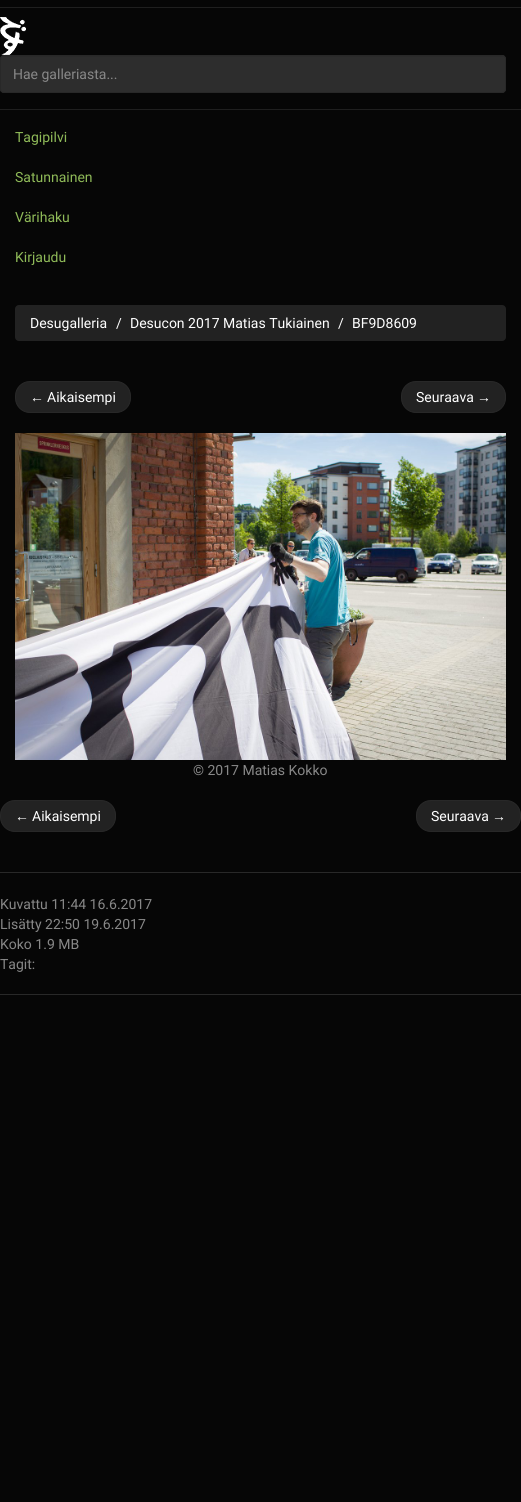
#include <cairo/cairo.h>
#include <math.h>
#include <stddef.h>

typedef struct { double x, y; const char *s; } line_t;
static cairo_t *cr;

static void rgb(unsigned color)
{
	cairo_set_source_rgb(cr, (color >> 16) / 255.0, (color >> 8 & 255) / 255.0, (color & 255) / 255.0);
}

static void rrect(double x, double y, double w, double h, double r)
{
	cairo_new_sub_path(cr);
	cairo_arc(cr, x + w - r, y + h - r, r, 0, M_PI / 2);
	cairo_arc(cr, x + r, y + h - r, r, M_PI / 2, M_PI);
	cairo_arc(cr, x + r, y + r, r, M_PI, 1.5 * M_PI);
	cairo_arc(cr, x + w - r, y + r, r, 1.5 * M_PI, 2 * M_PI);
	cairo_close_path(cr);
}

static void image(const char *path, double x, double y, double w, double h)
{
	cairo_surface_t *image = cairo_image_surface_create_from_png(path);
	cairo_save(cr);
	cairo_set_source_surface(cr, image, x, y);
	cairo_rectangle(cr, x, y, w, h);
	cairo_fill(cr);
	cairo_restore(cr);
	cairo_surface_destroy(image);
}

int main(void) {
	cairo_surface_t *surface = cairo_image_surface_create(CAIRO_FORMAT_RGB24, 521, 1502);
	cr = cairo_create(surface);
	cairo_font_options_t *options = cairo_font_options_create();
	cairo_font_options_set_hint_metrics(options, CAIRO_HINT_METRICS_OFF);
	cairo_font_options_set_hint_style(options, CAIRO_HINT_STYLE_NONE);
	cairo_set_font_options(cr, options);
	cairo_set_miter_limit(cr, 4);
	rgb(0x060606);
	cairo_paint(cr);
	rgb(0x1f1f1f);
	cairo_rectangle(cr, 0, 109, 521, 1);
	cairo_fill(cr);
	cairo_rectangle(cr, 0, 7, 521, 1);
	cairo_fill(cr);
	image("img/1.png", 0, 17, 26, 38);
	rgb(0x2d2d2d);
	rrect(0, 55, 506, 38, 4);
	cairo_fill(cr);
	rgb(0x2a2a2a);
	cairo_new_path(cr);
	cairo_move_to(cr, 4, 57);
	cairo_line_to(cr, 502, 57);
	cairo_curve_to(cr, 504, 57, 505, 58, 505, 60);
	cairo_curve_to(cr, 505, 58, 504, 56, 502, 56);
	cairo_line_to(cr, 4, 56);
	cairo_curve_to(cr, 2, 56, 1, 58, 1, 60);
	cairo_curve_to(cr, 1, 58, 2, 57, 4, 57);
	cairo_close_path(cr);
	cairo_fill(cr);
	rrect(0.5, 55.5, 505, 37, 3.5);
	rgb(0x282828);
	cairo_set_line_width(cr, 1);
	cairo_stroke(cr);
	rgb(0x222222);
	rrect(15, 305, 491, 36, 4);
	cairo_fill(cr);
	rrect(15.5, 381.5, 115, 31, 14.5);
	cairo_fill_preserve(cr);
	rgb(0x282828);
	cairo_stroke(cr);
	rgb(0x222222);
	rrect(401.5, 381.5, 104, 31, 14.5);
	cairo_fill_preserve(cr);
	rgb(0x282828);
	cairo_stroke(cr);
	image("img/2.png", 15, 433, 491, 327);
	rgb(0x222222);
	rrect(0.5, 800.5, 115, 31, 14.5);
	cairo_fill_preserve(cr);
	rgb(0x282828);
	cairo_stroke(cr);
	rgb(0x222222);
	rrect(416.5, 800.5, 104, 31, 14.5);
	cairo_fill_preserve(cr);
	rgb(0x282828);
	cairo_stroke(cr);
	cairo_rectangle(cr, 0, 872, 521, 1);
	cairo_fill(cr);
	cairo_rectangle(cr, 0, 994, 521, 1);
	cairo_fill(cr);
	cairo_select_font_face(cr, "Roboto", CAIRO_FONT_SLANT_NORMAL, CAIRO_FONT_WEIGHT_NORMAL);
	cairo_set_font_size(cr, 14);
	rgb(0x888888);
	cairo_move_to(cr, 13, 79);
	cairo_show_text(cr, "Hae galleriasta...");
	rgb(0x8fba58);
	{
		static const line_t items[] = {
			{15, 142, "Tagipilvi"},
			{15, 182, "Satunnainen"},
			{15, 222, "Värihaku"},
			{15, 262, "Kirjaudu"},
		};
		for (size_t i = 0; i < sizeof items / sizeof *items; i++) {
			cairo_move_to(cr, items[i].x, items[i].y);
			cairo_show_text(cr, items[i].s);
		}
	}
	rgb(0xffffff);
	{
		static const line_t items[] = {
			{30, 328, "Desugalleria"},
			{116, 328, "/"},
			{130, 328, "Desucon 2017 Matias Tukiainen"},
			{338, 328, "/"},
			{352, 328, "BF9D8609"},
		};
		for (size_t i = 0; i < sizeof items / sizeof *items; i++) {
			cairo_move_to(cr, items[i].x, items[i].y);
			cairo_show_text(cr, items[i].s);
		}
	}
	cairo_select_font_face(cr, "Liberation Sans", CAIRO_FONT_SLANT_NORMAL, CAIRO_FONT_WEIGHT_NORMAL);
	cairo_move_to(cr, 30, 402);
	cairo_show_text(cr, "←");
	cairo_select_font_face(cr, "Roboto", CAIRO_FONT_SLANT_NORMAL, CAIRO_FONT_WEIGHT_NORMAL);
	cairo_move_to(cr, 47, 402);
	cairo_show_text(cr, "Aikaisempi");
	cairo_move_to(cr, 416, 402);
	cairo_show_text(cr, "Seuraava");
	cairo_select_font_face(cr, "Liberation Sans", CAIRO_FONT_SLANT_NORMAL, CAIRO_FONT_WEIGHT_NORMAL);
	cairo_move_to(cr, 477, 402);
	cairo_show_text(cr, "→");
	cairo_select_font_face(cr, "Roboto", CAIRO_FONT_SLANT_NORMAL, CAIRO_FONT_WEIGHT_NORMAL);
	rgb(0x888888);
	cairo_move_to(cr, 193, 775);
	cairo_show_text(cr, "© 2017 Matias Kokko");
	cairo_select_font_face(cr, "Liberation Sans", CAIRO_FONT_SLANT_NORMAL, CAIRO_FONT_WEIGHT_NORMAL);
	rgb(0xffffff);
	cairo_move_to(cr, 15, 821);
	cairo_show_text(cr, "←");
	cairo_select_font_face(cr, "Roboto", CAIRO_FONT_SLANT_NORMAL, CAIRO_FONT_WEIGHT_NORMAL);
	cairo_move_to(cr, 32, 821);
	cairo_show_text(cr, "Aikaisempi");
	cairo_move_to(cr, 431, 821);
	cairo_show_text(cr, "Seuraava");
	cairo_select_font_face(cr, "Liberation Sans", CAIRO_FONT_SLANT_NORMAL, CAIRO_FONT_WEIGHT_NORMAL);
	cairo_move_to(cr, 492, 821);
	cairo_show_text(cr, "→");
	cairo_select_font_face(cr, "Roboto", CAIRO_FONT_SLANT_NORMAL, CAIRO_FONT_WEIGHT_NORMAL);
	rgb(0x888888);
	{
		static const line_t items[] = {
			{0, 909, "Kuvattu 11:44 16.6.2017"},
			{0, 929, "Lisätty 22:50 19.6.2017"},
			{0, 949, "Koko 1.9 MB"},
			{0, 969, "Tagit:"},
		};
		for (size_t i = 0; i < sizeof items / sizeof *items; i++) {
			cairo_move_to(cr, items[i].x, items[i].y);
			cairo_show_text(cr, items[i].s);
		}
	}
	cairo_surface_write_to_png(surface, "page.png");
	cairo_font_options_destroy(options);
	cairo_destroy(cr);
	cairo_surface_destroy(surface);
	return 0;
}
